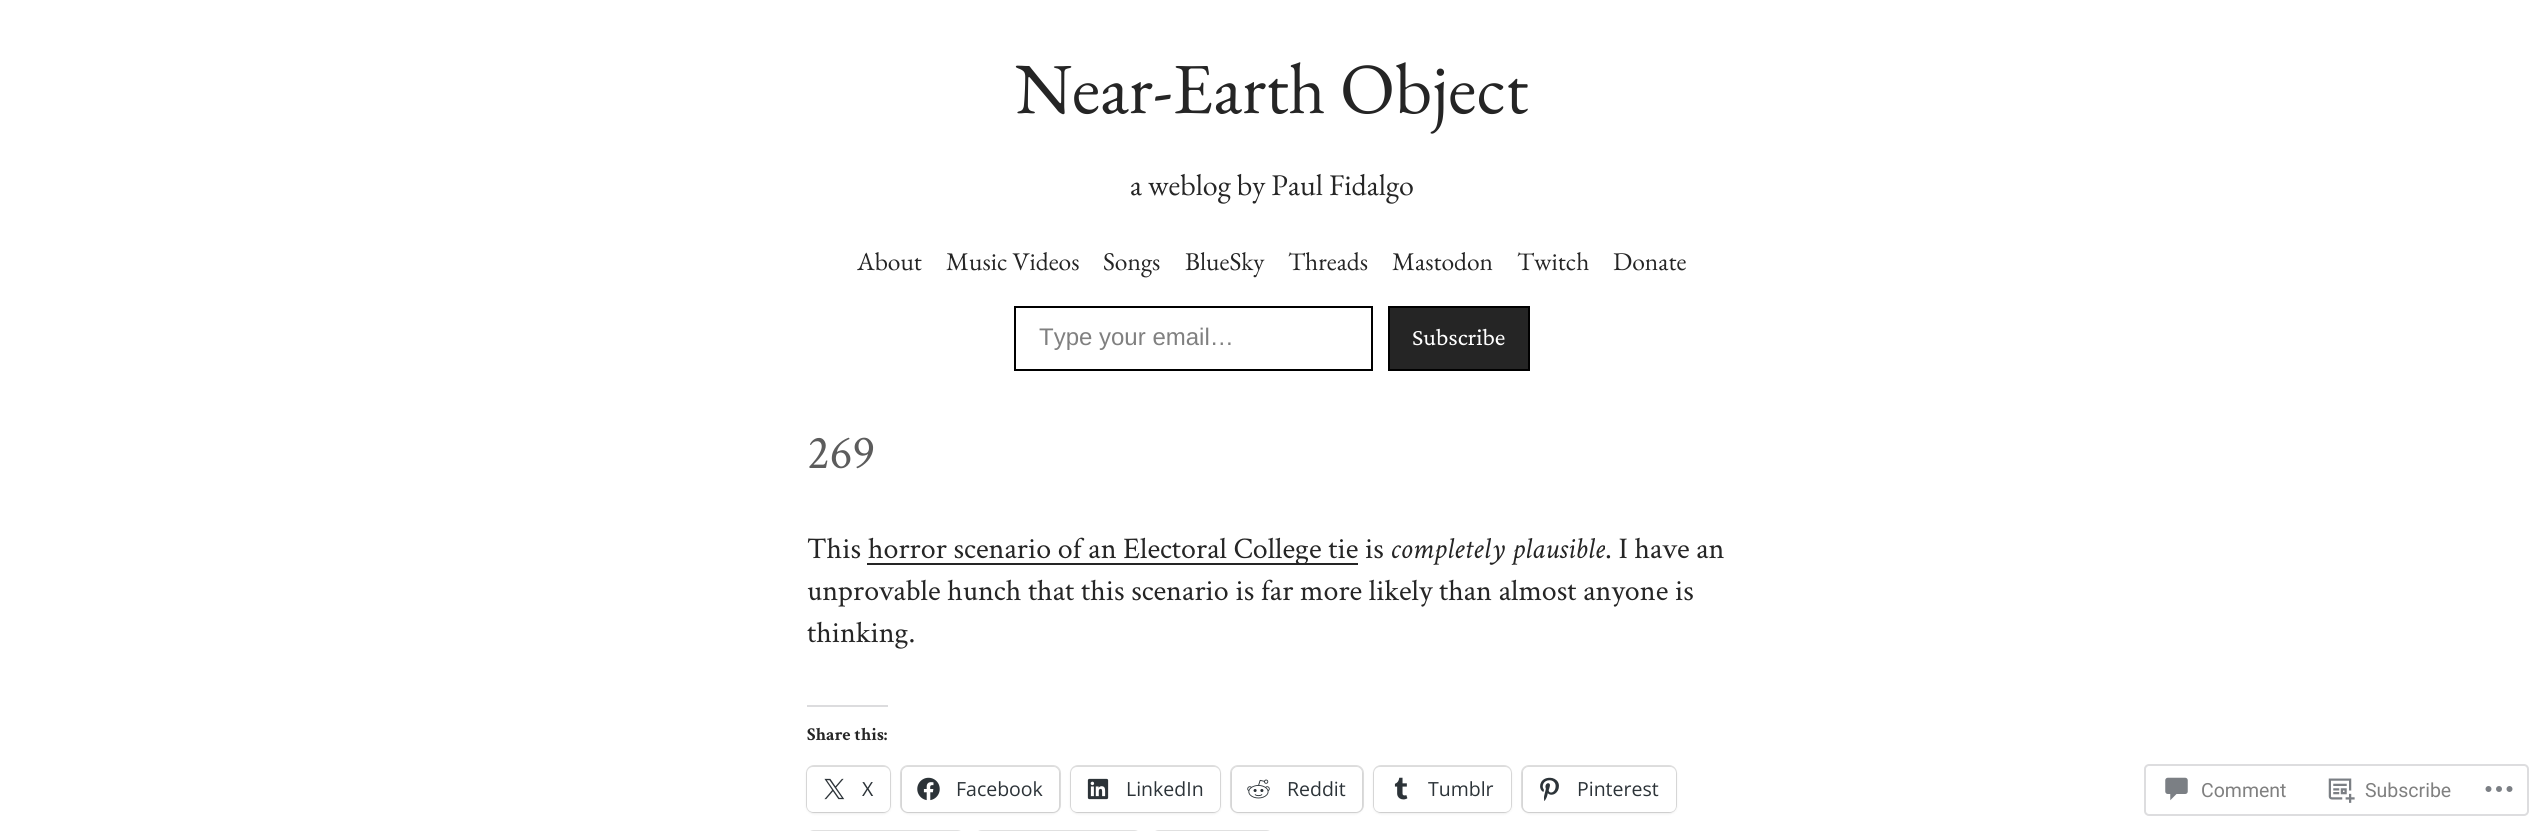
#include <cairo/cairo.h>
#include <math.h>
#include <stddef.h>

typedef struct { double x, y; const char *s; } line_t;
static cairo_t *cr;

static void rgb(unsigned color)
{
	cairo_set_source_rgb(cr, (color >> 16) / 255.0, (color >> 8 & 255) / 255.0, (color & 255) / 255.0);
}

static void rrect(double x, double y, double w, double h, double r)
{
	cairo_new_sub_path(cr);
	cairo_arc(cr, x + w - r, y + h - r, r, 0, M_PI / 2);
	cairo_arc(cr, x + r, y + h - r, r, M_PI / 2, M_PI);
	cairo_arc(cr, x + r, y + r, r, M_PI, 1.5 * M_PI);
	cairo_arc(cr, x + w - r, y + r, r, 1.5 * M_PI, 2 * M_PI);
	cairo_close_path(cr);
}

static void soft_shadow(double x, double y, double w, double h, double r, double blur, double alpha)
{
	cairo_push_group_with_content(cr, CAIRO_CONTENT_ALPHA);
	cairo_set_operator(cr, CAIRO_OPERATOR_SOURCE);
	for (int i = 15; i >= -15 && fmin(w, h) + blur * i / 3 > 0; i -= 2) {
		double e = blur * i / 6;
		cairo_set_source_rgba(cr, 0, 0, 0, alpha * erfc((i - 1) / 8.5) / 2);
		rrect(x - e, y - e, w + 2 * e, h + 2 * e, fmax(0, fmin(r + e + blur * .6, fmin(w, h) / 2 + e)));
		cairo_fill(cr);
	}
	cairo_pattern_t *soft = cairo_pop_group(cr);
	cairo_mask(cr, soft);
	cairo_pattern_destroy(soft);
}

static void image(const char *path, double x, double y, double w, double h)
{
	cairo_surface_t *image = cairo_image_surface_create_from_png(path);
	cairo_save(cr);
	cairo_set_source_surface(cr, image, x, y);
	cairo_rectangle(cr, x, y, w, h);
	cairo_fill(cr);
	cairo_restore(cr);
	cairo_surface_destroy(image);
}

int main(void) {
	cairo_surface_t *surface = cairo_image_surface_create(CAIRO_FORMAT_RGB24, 2543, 831);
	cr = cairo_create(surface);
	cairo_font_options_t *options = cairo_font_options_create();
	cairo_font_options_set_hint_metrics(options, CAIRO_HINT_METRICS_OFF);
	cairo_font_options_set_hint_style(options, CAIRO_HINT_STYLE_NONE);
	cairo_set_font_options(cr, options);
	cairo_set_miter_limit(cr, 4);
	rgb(0xffffff);
	cairo_paint(cr);
	cairo_rectangle(cr, 1015, 307, 357, 63);
	rgb(0x000000);
	cairo_stroke(cr);
	rgb(0x252525);
	cairo_rectangle(cr, 1389, 307, 140, 63);
	cairo_fill_preserve(cr);
	rgb(0x000000);
	cairo_stroke(cr);
	rgb(0x252525);
	cairo_rectangle(cr, 867, 563, 491, 2);
	cairo_fill(cr);
	rgb(0xdcdcde);
	cairo_rectangle(cr, 807, 705, 81, 2);
	cairo_fill(cr);
	rrect(807, 766, 83, 46, 7);
	rgb(0xe0e0e0);
	cairo_stroke(cr);
	rgb(0x000000);
	soft_shadow(807, 768, 83, 45, 6, 1.5, 0.12);
	rgb(0xffffff);
	rrect(807, 767, 83, 45, 6);
	cairo_fill(cr);
	image("img/1.png", 824, 778, 21, 22);
	rrect(901, 766, 159, 46, 7);
	rgb(0xe0e0e0);
	cairo_stroke(cr);
	rgb(0x000000);
	soft_shadow(902, 768, 157, 45, 6, 1.5, 0.12);
	rgb(0xffffff);
	rrect(902, 767, 157, 45, 6);
	cairo_fill(cr);
	image("img/2.png", 917, 777, 23, 24);
	rrect(1071, 766, 149, 46, 7);
	rgb(0xe0e0e0);
	cairo_stroke(cr);
	rgb(0x000000);
	soft_shadow(1071, 768, 149, 45, 6, 1.5, 0.12);
	rgb(0xffffff);
	rrect(1071, 767, 149, 45, 6);
	cairo_fill(cr);
	image("img/3.png", 1087, 778, 22, 22);
	rrect(1231, 766, 132, 46, 7);
	rgb(0xe0e0e0);
	cairo_stroke(cr);
	rgb(0x000000);
	soft_shadow(1232, 768, 130, 45, 6, 1.5, 0.12);
	rgb(0xffffff);
	rrect(1232, 767, 130, 45, 6);
	cairo_fill(cr);
	image("img/4.png", 1247, 779, 23, 20);
	rrect(1374, 766, 137, 46, 7);
	rgb(0xe0e0e0);
	cairo_stroke(cr);
	rgb(0x000000);
	soft_shadow(1374, 768, 137, 45, 6, 1.5, 0.12);
	rgb(0xffffff);
	rrect(1374, 767, 137, 45, 6);
	cairo_fill(cr);
	image("img/5.png", 1394, 777, 14, 23);
	rrect(1522, 766, 154, 46, 7);
	rgb(0xe0e0e0);
	cairo_stroke(cr);
	rgb(0x000000);
	soft_shadow(1523, 768, 153, 45, 6, 1.5, 0.12);
	rgb(0xffffff);
	rrect(1523, 767, 153, 45, 6);
	cairo_fill(cr);
	image("img/6.png", 1540, 777, 19, 24);
	rrect(807, 831, 157, 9, 7);
	rgb(0xe0e0e0);
	cairo_stroke(cr);
	rrect(975, 831, 166, 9, 7);
	cairo_stroke(cr);
	rrect(1152, 831, 121, 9, 7);
	cairo_stroke(cr);
	rrect(2145, 765, 383, 50, 4);
	rgb(0xdddddf);
	cairo_stroke(cr);
	image("img/7.png", 2165, 777, 23, 24);
	image("img/8.png", 2328, 778, 27, 25);
	image("img/9.png", 2485, 786, 28, 6);
	cairo_select_font_face(cr, "EB Garamond", CAIRO_FONT_SLANT_NORMAL, CAIRO_FONT_WEIGHT_NORMAL);
	cairo_set_font_size(cr, 72);
	rgb(0x252525);
	cairo_move_to(cr, 1015, 113);
	cairo_show_text(cr, "Near-Earth Object");
	cairo_set_font_size(cr, 30);
	cairo_move_to(cr, 1130, 195);
	cairo_show_text(cr, "a weblog by Paul Fidalgo");
	cairo_set_font_size(cr, 25.5);
	{
		static const line_t items[] = {
			{857, 270, "About"},
			{946, 270, "Music Videos"},
			{1103, 270, "Songs"},
			{1185, 270, "BlueSky"},
			{1288, 270, "Threads"},
			{1392, 270, "Mastodon"},
			{1517, 270, "Twitch"},
			{1613, 270, "Donate"},
		};
		for (size_t i = 0; i < sizeof items / sizeof *items; i++) {
			cairo_move_to(cr, items[i].x, items[i].y);
			cairo_show_text(cr, items[i].s);
		}
	}
	cairo_select_font_face(cr, "Liberation Sans", CAIRO_FONT_SLANT_NORMAL, CAIRO_FONT_WEIGHT_NORMAL);
	cairo_set_font_size(cr, 24);
	rgb(0x808080);
	cairo_move_to(cr, 1039, 345);
	cairo_show_text(cr, "Type your email…");
	cairo_select_font_face(cr, "Crimson Pro", CAIRO_FONT_SLANT_NORMAL, CAIRO_FONT_WEIGHT_NORMAL);
	rgb(0xffffff);
	cairo_move_to(cr, 1412, 345);
	cairo_show_text(cr, "Subscribe");
	cairo_select_font_face(cr, "Crimson Text", CAIRO_FONT_SLANT_NORMAL, CAIRO_FONT_WEIGHT_NORMAL);
	cairo_set_font_size(cr, 48);
	rgb(0x5c5c5c);
	cairo_move_to(cr, 807, 468);
	cairo_show_text(cr, "269");
	cairo_set_font_size(cr, 30);
	rgb(0x252525);
	cairo_move_to(cr, 807, 558);
	cairo_show_text(cr, "This");
	cairo_move_to(cr, 868, 558);
	cairo_show_text(cr, "horror scenario of an Electoral College tie is");
	cairo_select_font_face(cr, "Crimson Text", CAIRO_FONT_SLANT_ITALIC, CAIRO_FONT_WEIGHT_NORMAL);
	cairo_move_to(cr, 1390, 558);
	cairo_show_text(cr, "completely plausible");
	cairo_select_font_face(cr, "Crimson Text", CAIRO_FONT_SLANT_NORMAL, CAIRO_FONT_WEIGHT_NORMAL);
	{
		static const line_t items[] = {
			{1605, 558, ". I have an"},
			{807, 600, "unprovable hunch that this scenario is far more likely than almost anyone is"},
			{807, 642, "thinking."},
		};
		for (size_t i = 0; i < sizeof items / sizeof *items; i++) {
			cairo_move_to(cr, items[i].x, items[i].y);
			cairo_show_text(cr, items[i].s);
		}
	}
	cairo_select_font_face(cr, "Crimson Text", CAIRO_FONT_SLANT_NORMAL, CAIRO_FONT_WEIGHT_BOLD);
	cairo_set_font_size(cr, 18);
	cairo_move_to(cr, 807, 740);
	cairo_show_text(cr, "Share this:");
	cairo_select_font_face(cr, "Open Sans", CAIRO_FONT_SLANT_NORMAL, CAIRO_FONT_WEIGHT_NORMAL);
	cairo_set_font_size(cr, 19.5);
	rgb(0x2c3338);
	{
		static const line_t items[] = {
			{862, 796, "X"},
			{956, 796, "Facebook"},
			{1126, 796, "LinkedIn"},
			{1287, 796, "Reddit"},
			{1428, 796, "Tumblr"},
			{1577, 796, "Pinterest"},
		};
		for (size_t i = 0; i < sizeof items / sizeof *items; i++) {
			cairo_move_to(cr, items[i].x, items[i].y);
			cairo_show_text(cr, items[i].s);
		}
	}
	cairo_select_font_face(cr, "Roboto", CAIRO_FONT_SLANT_NORMAL, CAIRO_FONT_WEIGHT_NORMAL);
	rgb(0x808080);
	cairo_move_to(cr, 2201, 797);
	cairo_show_text(cr, "Comment");
	cairo_move_to(cr, 2365, 797);
	cairo_show_text(cr, "Subscribe");
	cairo_surface_write_to_png(surface, "page.png");
	cairo_font_options_destroy(options);
	cairo_destroy(cr);
	cairo_surface_destroy(surface);
	return 0;
}
